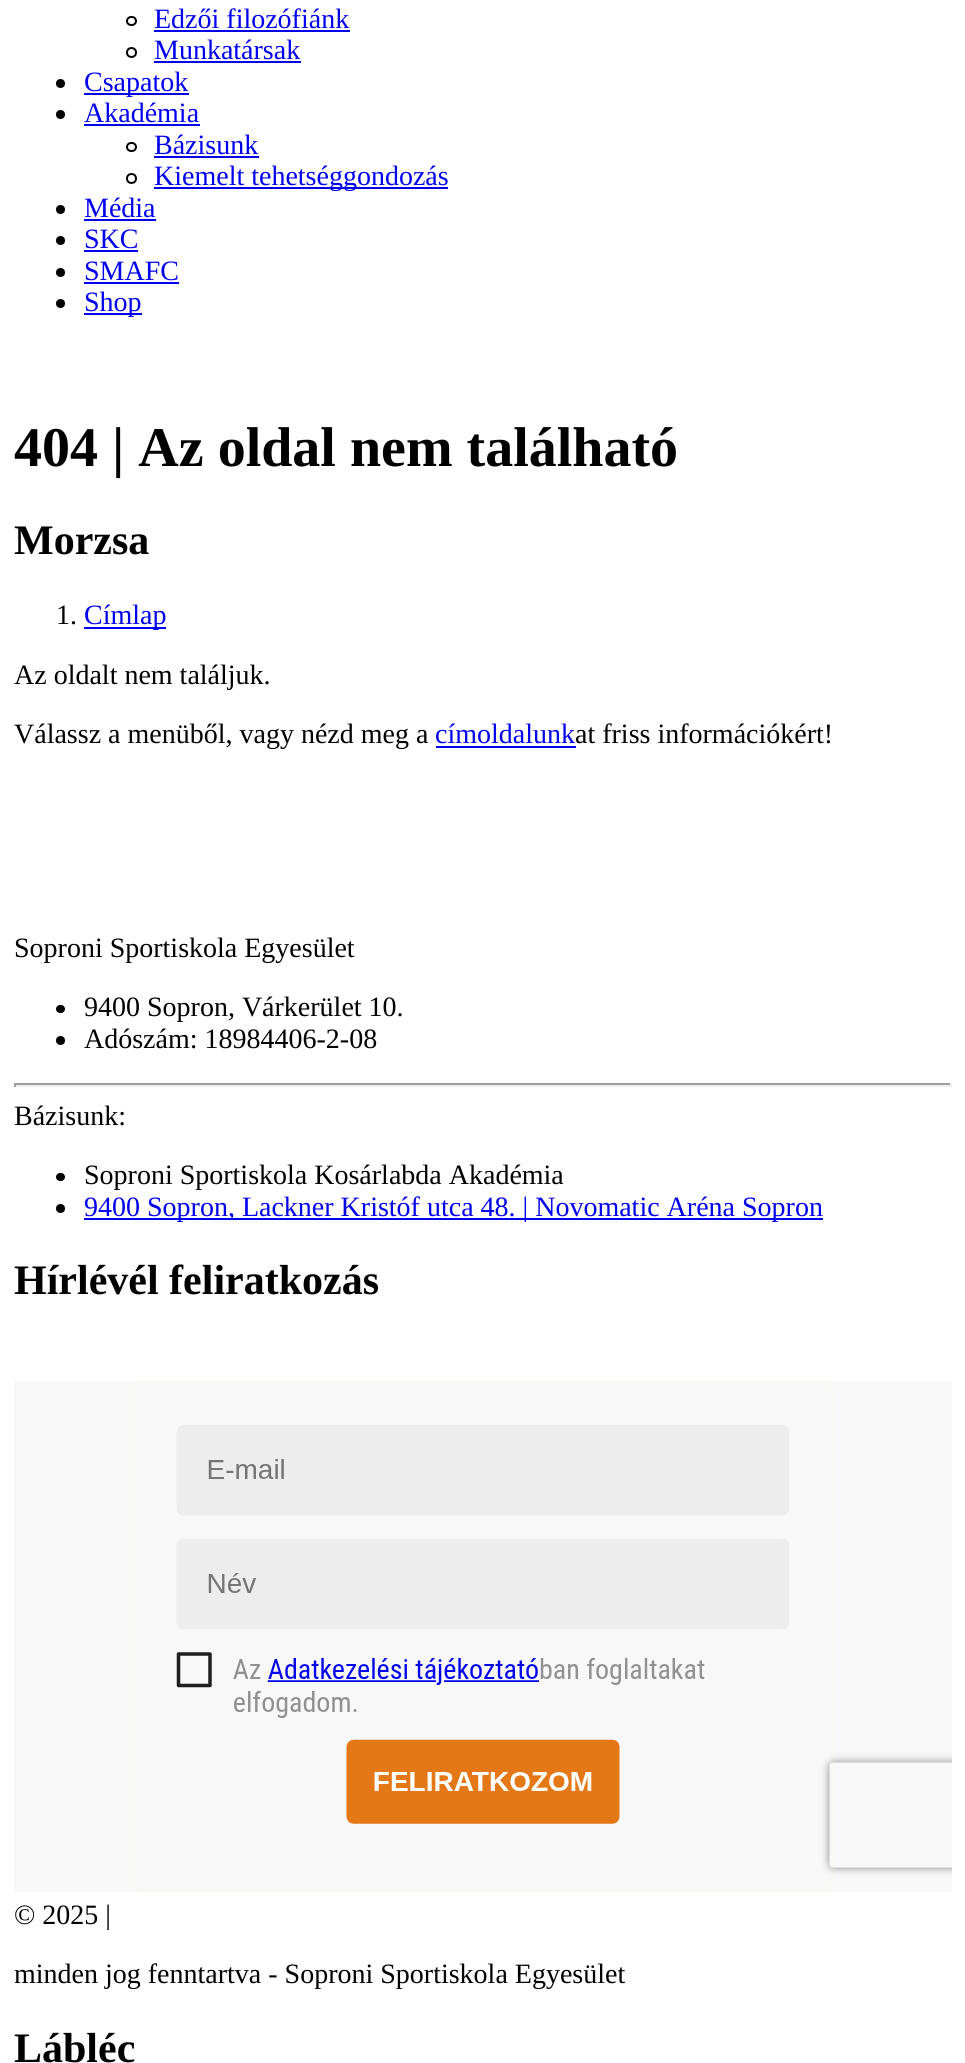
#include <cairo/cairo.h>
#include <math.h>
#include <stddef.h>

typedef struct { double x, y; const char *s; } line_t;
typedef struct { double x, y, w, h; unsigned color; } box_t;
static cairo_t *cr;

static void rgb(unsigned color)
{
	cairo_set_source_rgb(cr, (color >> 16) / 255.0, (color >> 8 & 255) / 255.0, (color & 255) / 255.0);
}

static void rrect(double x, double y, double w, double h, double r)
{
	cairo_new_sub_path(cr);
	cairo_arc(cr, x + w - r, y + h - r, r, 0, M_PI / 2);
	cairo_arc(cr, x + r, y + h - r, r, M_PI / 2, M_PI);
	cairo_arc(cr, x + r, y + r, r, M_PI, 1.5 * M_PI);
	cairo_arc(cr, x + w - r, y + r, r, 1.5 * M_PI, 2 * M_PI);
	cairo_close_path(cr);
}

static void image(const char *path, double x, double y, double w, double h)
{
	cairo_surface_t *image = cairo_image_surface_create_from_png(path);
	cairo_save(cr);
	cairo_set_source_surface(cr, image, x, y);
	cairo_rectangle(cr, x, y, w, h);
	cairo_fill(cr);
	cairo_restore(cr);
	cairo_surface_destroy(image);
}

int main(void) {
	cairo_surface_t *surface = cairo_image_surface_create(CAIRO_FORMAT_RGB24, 965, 2063);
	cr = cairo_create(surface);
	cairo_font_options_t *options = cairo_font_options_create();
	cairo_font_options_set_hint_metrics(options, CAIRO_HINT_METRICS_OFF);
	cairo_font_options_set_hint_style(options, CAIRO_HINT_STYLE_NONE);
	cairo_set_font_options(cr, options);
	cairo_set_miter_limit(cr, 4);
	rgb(0xffffff);
	cairo_paint(cr);
	rrect(127, 17, 9, 8, 4);
	rgb(0x000000);
	cairo_stroke(cr);
	rgb(0x0000ee);
	cairo_rectangle(cr, 154, 30, 196, 2);
	cairo_fill(cr);
	cairo_arc(cr, 131.5, 52.5, 4.5, 0, 2 * M_PI);
	rgb(0x000000);
	cairo_stroke(cr);
	rgb(0x0000ee);
	cairo_rectangle(cr, 154, 61, 147, 2);
	cairo_fill(cr);
	rgb(0x000000);
	cairo_arc(cr, 60.5, 83.5, 4.5, 0, 2 * M_PI);
	cairo_fill(cr);
	rgb(0x0000ee);
	cairo_rectangle(cr, 84, 93, 105, 2);
	cairo_fill(cr);
	rgb(0x000000);
	cairo_arc(cr, 60.5, 114.5, 4.5, 0, 2 * M_PI);
	cairo_fill(cr);
	rgb(0x0000ee);
	cairo_rectangle(cr, 84, 124, 116, 2);
	cairo_fill(cr);
	rrect(127, 143, 9, 8, 4);
	rgb(0x000000);
	cairo_stroke(cr);
	rgb(0x0000ee);
	cairo_rectangle(cr, 154, 156, 105, 2);
	cairo_fill(cr);
	cairo_arc(cr, 131.5, 178.5, 4.5, 0, 2 * M_PI);
	rgb(0x000000);
	cairo_stroke(cr);
	rgb(0x0000ee);
	cairo_rectangle(cr, 154, 187, 294, 2);
	cairo_fill(cr);
	rgb(0x000000);
	cairo_arc(cr, 60.5, 209.5, 4.5, 0, 2 * M_PI);
	cairo_fill(cr);
	rgb(0x0000ee);
	cairo_rectangle(cr, 84, 219, 72, 2);
	cairo_fill(cr);
	rgb(0x000000);
	cairo_arc(cr, 60.5, 240.5, 4.5, 0, 2 * M_PI);
	cairo_fill(cr);
	rgb(0x0000ee);
	cairo_rectangle(cr, 84, 250, 54, 2);
	cairo_fill(cr);
	rgb(0x000000);
	cairo_arc(cr, 60.5, 272.5, 4.5, 0, 2 * M_PI);
	cairo_fill(cr);
	rgb(0x0000ee);
	cairo_rectangle(cr, 84, 282, 95, 2);
	cairo_fill(cr);
	rgb(0x000000);
	cairo_arc(cr, 60.5, 303.5, 4.5, 0, 2 * M_PI);
	cairo_fill(cr);
	{
		static const box_t items[] = {
			{84, 313, 58, 2, 0x0000ee},
			{84, 627, 82, 2, 0x0000ee},
			{436, 746, 140, 2, 0x0000ee},
		};
		for (size_t i = 0; i < sizeof items / sizeof *items; i++) {
			rgb(items[i].color);
			cairo_rectangle(cr, items[i].x, items[i].y, items[i].w, items[i].h);
			cairo_fill(cr);
		}
	}
	rgb(0x000000);
	rrect(56, 1005, 9, 8, 4);
	cairo_fill(cr);
	cairo_arc(cr, 60.5, 1040.5, 4.5, 0, 2 * M_PI);
	cairo_fill(cr);
	{
		static const box_t items[] = {
			{14, 1083, 938, 2, 0x9f9f9f},
			{950, 1083, 2, 4, 0xeeeeee},
			{14, 1085, 938, 2, 0xeeeeee},
			{14, 1083, 2, 4, 0x9f9f9f},
		};
		for (size_t i = 0; i < sizeof items / sizeof *items; i++) {
			rgb(items[i].color);
			cairo_rectangle(cr, items[i].x, items[i].y, items[i].w, items[i].h);
			cairo_fill(cr);
		}
	}
	rgb(0x000000);
	rrect(56, 1173, 9, 8, 4);
	cairo_fill(cr);
	cairo_arc(cr, 60.5, 1208.5, 4.5, 0, 2 * M_PI);
	cairo_fill(cr);
	rgb(0x0000ee);
	cairo_rectangle(cr, 84, 1218, 739, 2);
	cairo_fill(cr);
	image("img/1.png", 14, 1381, 938, 511);
	cairo_select_font_face(cr, "Liberation Serif", CAIRO_FONT_SLANT_NORMAL, CAIRO_FONT_WEIGHT_NORMAL);
	cairo_set_font_size(cr, 28);
	{
		static const line_t items[] = {
			{154, 28, "Edzői filozófiánk"},
			{154, 59, "Munkatársak"},
			{84, 91, "Csapatok"},
			{84, 122, "Akadémia"},
			{154, 154, "Bázisunk"},
			{154, 185, "Kiemelt tehetséggondozás"},
			{84, 217, "Média"},
			{84, 248, "SKC"},
			{84, 280, "SMAFC"},
			{84, 311, "Shop"},
		};
		for (size_t i = 0; i < sizeof items / sizeof *items; i++) {
			cairo_move_to(cr, items[i].x, items[i].y);
			cairo_show_text(cr, items[i].s);
		}
	}
	cairo_select_font_face(cr, "Liberation Serif", CAIRO_FONT_SLANT_NORMAL, CAIRO_FONT_WEIGHT_BOLD);
	cairo_set_font_size(cr, 56);
	rgb(0x000000);
	cairo_move_to(cr, 14, 466);
	cairo_show_text(cr, "404 | Az oldal nem található");
	cairo_set_font_size(cr, 42);
	cairo_move_to(cr, 14, 554);
	cairo_show_text(cr, "Morzsa");
	cairo_select_font_face(cr, "Liberation Serif", CAIRO_FONT_SLANT_NORMAL, CAIRO_FONT_WEIGHT_NORMAL);
	cairo_set_font_size(cr, 28);
	cairo_move_to(cr, 56, 624);
	cairo_show_text(cr, "1.");
	rgb(0x0000ee);
	cairo_move_to(cr, 84, 624);
	cairo_show_text(cr, "Címlap");
	rgb(0x000000);
	cairo_move_to(cr, 14, 684);
	cairo_show_text(cr, "Az oldalt nem találjuk.");
	cairo_move_to(cr, 14, 743);
	cairo_show_text(cr, "Válassz a menüből, vagy nézd meg a");
	rgb(0x0000ee);
	cairo_move_to(cr, 435, 743);
	cairo_show_text(cr, "címoldalunk");
	rgb(0x000000);
	{
		static const line_t items[] = {
			{575, 743, "at friss információkért!"},
			{14, 957, "Soproni Sportiskola Egyesület"},
			{84, 1016, "9400 Sopron, Várkerület 10."},
			{84, 1048, "Adószám: 18984406-2-08"},
			{14, 1125, "Bázisunk:"},
			{84, 1184, "Soproni Sportiskola Kosárlabda Akadémia"},
		};
		for (size_t i = 0; i < sizeof items / sizeof *items; i++) {
			cairo_move_to(cr, items[i].x, items[i].y);
			cairo_show_text(cr, items[i].s);
		}
	}
	rgb(0x0000ee);
	cairo_move_to(cr, 84, 1216);
	cairo_show_text(cr, "9400 Sopron, Lackner Kristóf utca 48. | Novomatic Aréna Sopron");
	cairo_select_font_face(cr, "Liberation Serif", CAIRO_FONT_SLANT_NORMAL, CAIRO_FONT_WEIGHT_BOLD);
	cairo_set_font_size(cr, 42);
	rgb(0x000000);
	cairo_move_to(cr, 14, 1294);
	cairo_show_text(cr, "Hírlévél feliratkozás");
	cairo_select_font_face(cr, "Liberation Serif", CAIRO_FONT_SLANT_NORMAL, CAIRO_FONT_WEIGHT_NORMAL);
	cairo_set_font_size(cr, 28);
	cairo_move_to(cr, 14, 1924);
	cairo_show_text(cr, "© 2025 |");
	cairo_move_to(cr, 14, 1983);
	cairo_show_text(cr, "minden jog fenntartva - Soproni Sportiskola Egyesület");
	cairo_select_font_face(cr, "Liberation Serif", CAIRO_FONT_SLANT_NORMAL, CAIRO_FONT_WEIGHT_BOLD);
	cairo_set_font_size(cr, 42);
	cairo_move_to(cr, 14, 2062);
	cairo_show_text(cr, "Lábléc");
	cairo_surface_write_to_png(surface, "page.png");
	cairo_font_options_destroy(options);
	cairo_destroy(cr);
	cairo_surface_destroy(surface);
	return 0;
}
